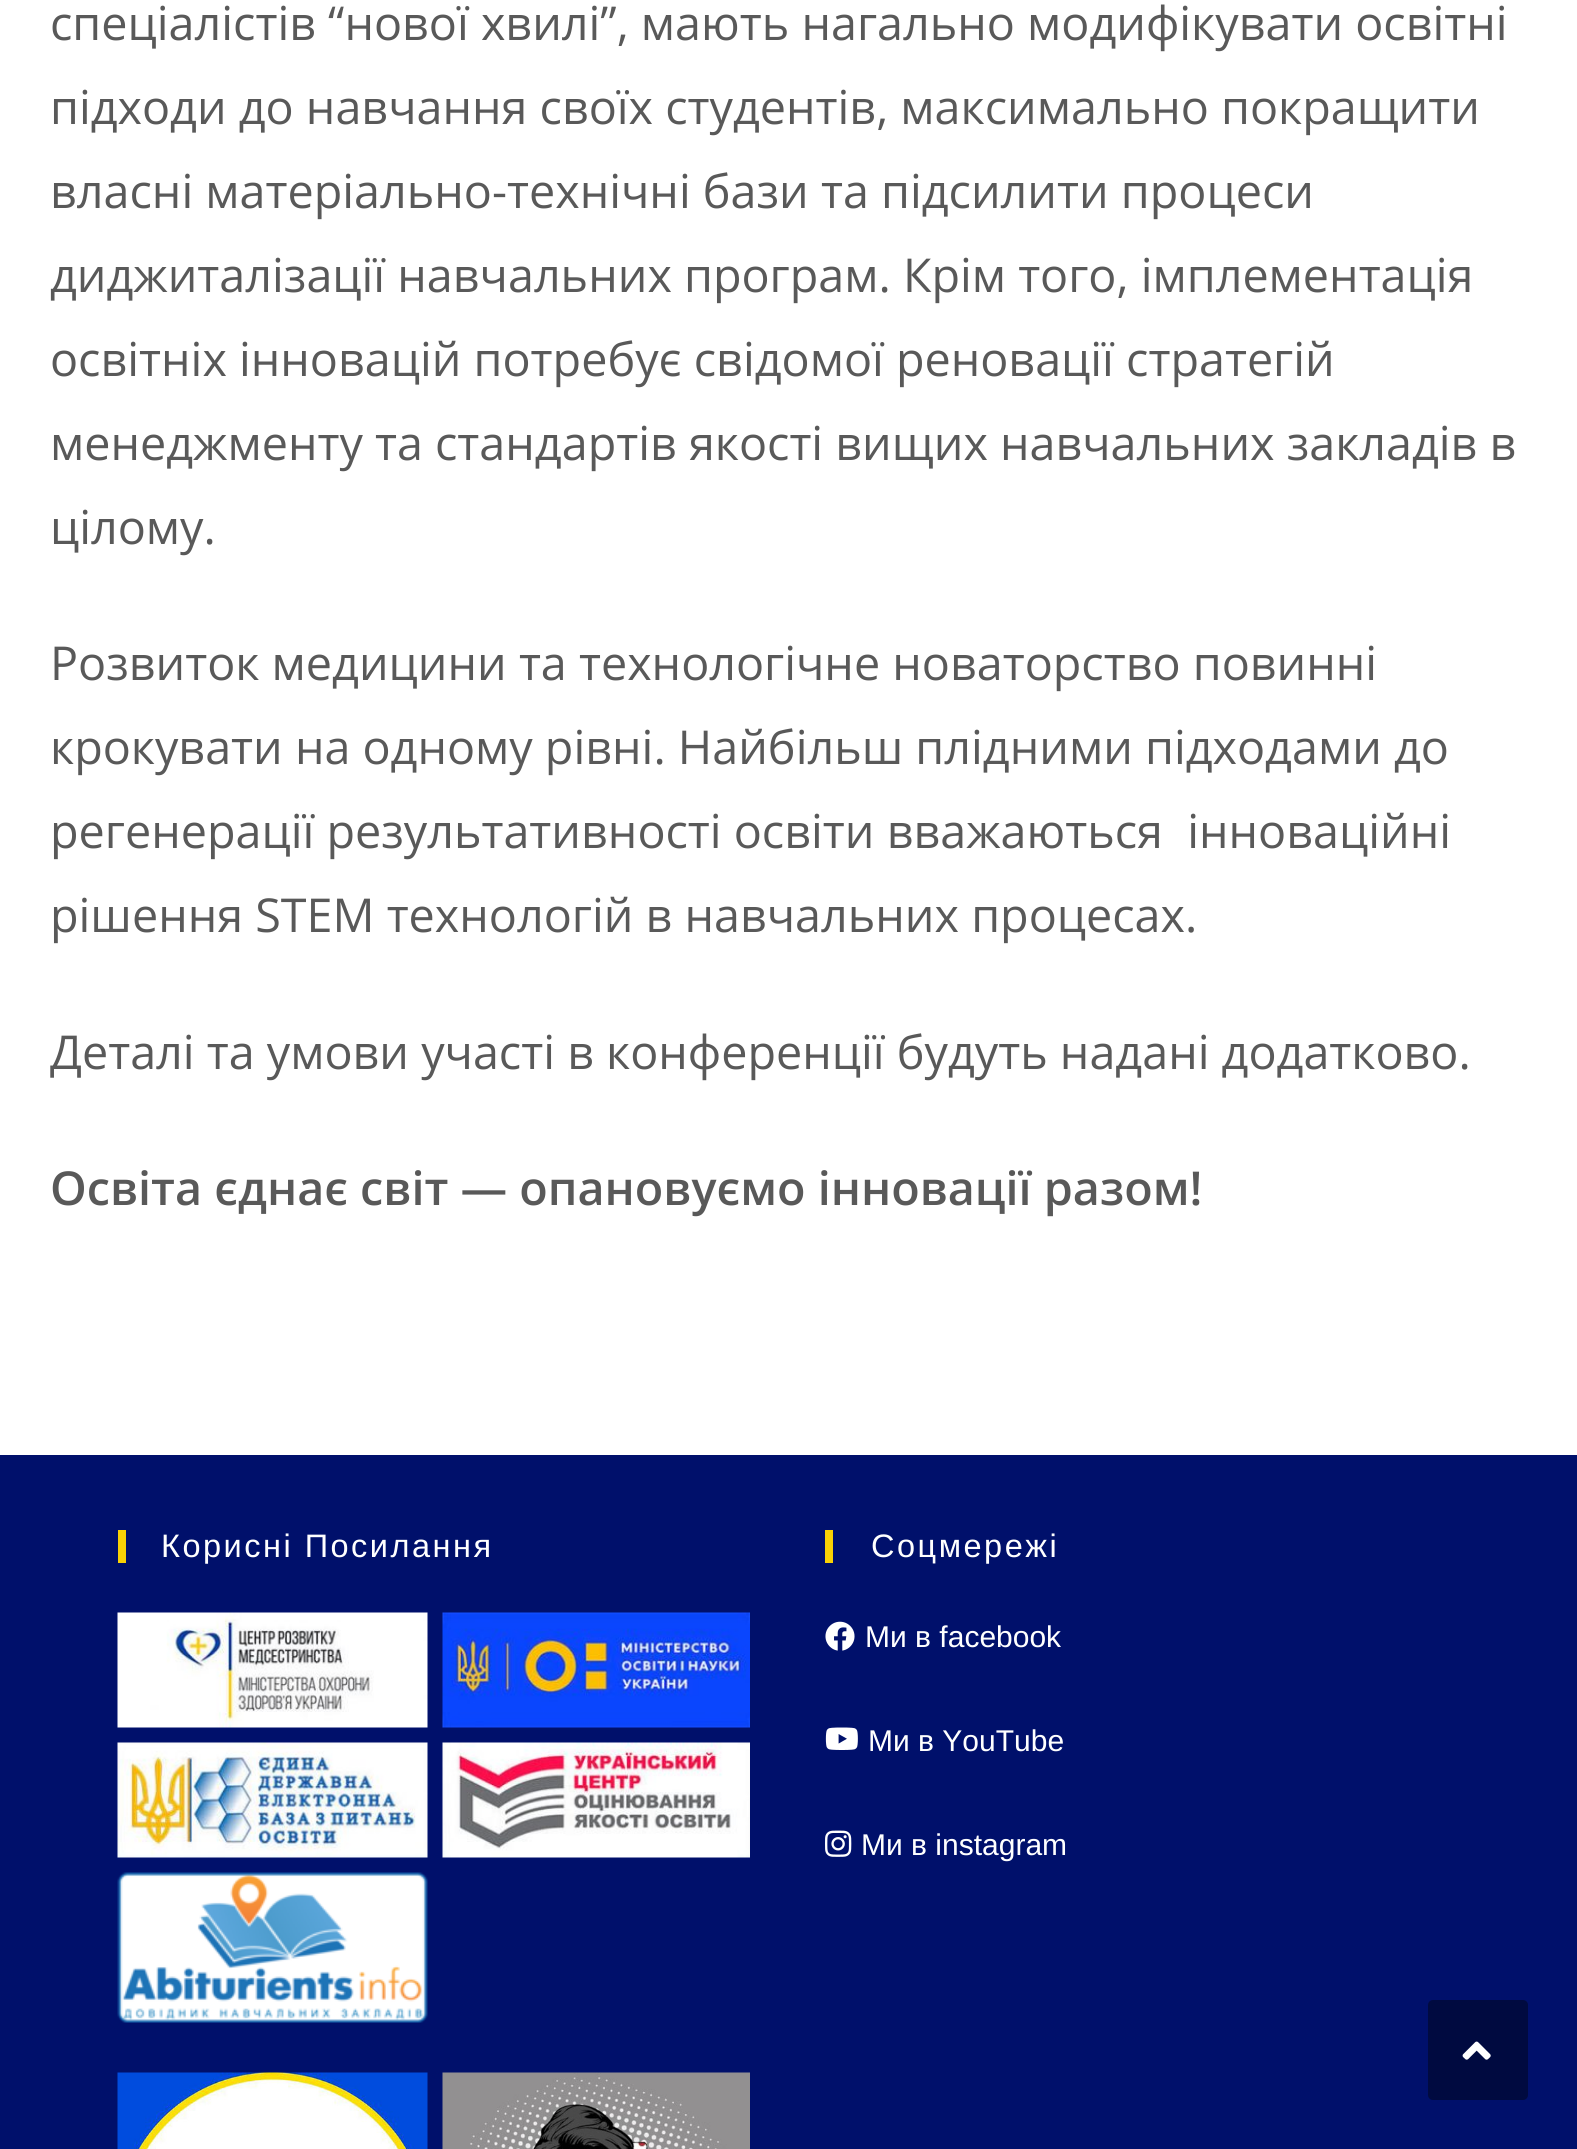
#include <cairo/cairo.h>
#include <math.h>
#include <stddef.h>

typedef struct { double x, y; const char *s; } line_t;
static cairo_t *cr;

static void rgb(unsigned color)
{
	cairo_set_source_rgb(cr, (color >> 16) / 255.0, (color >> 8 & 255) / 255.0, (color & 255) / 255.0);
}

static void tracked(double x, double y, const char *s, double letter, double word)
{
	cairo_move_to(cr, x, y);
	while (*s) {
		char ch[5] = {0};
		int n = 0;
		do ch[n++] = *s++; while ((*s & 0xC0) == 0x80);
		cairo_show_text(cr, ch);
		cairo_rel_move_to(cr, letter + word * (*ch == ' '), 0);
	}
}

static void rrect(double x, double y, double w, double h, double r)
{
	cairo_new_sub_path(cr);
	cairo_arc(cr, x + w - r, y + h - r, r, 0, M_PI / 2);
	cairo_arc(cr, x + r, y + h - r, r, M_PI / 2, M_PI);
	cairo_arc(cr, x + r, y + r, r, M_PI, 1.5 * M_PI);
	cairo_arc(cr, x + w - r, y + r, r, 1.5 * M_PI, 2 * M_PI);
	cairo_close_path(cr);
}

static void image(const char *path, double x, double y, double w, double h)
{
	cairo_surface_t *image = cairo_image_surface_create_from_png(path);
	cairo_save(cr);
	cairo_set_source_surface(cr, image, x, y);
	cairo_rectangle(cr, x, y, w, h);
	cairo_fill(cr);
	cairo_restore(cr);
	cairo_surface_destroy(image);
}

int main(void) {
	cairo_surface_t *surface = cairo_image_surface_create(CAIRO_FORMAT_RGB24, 1577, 2149);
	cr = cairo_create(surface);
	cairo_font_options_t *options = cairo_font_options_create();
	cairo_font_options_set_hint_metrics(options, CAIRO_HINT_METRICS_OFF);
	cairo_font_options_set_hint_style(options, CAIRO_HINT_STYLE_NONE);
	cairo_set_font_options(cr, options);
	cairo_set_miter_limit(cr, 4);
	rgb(0xffffff);
	cairo_paint(cr);
	rgb(0x00106b);
	cairo_rectangle(cr, 0, 1455, 1577, 694);
	cairo_fill(cr);
	rgb(0xf9d105);
	cairo_rectangle(cr, 118, 1530, 8, 33);
	cairo_fill(cr);
	image("img/1.png", 117, 1612, 311, 116);
	image("img/2.png", 442, 1612, 308, 116);
	image("img/3.png", 117, 1742, 311, 116);
	image("img/4.png", 442, 1742, 308, 116);
	image("img/5.png", 117, 1872, 311, 151);
	image("img/6.png", 117, 2072, 311, 77);
	image("img/7.png", 442, 2072, 308, 77);
	cairo_rectangle(cr, 825, 1530, 8, 33);
	cairo_fill(cr);
	image("img/8.png", 825, 1621, 30, 30);
	image("img/9.png", 825, 1727, 33, 23);
	image("img/10.png", 825, 1830, 27, 27);
	rgb(0x000a40);
	rrect(1428, 2000, 100, 100, 5);
	cairo_fill(cr);
	image("img/11.png", 1462, 2041, 29, 19);
	cairo_select_font_face(cr, "Open Sans", CAIRO_FONT_SLANT_NORMAL, CAIRO_FONT_WEIGHT_NORMAL);
	cairo_set_font_size(cr, 46.7);
	rgb(0x595959);
	{
		static const line_t items[] = {
			{50, 40, "спеціалістів “нової хвилі”, мають нагально модифікувати освітні"},
			{50, 124, "підходи до навчання своїх студентів, максимально покращити"},
			{50, 208, "власні матеріально-технічні бази та підсилити процеси"},
			{50, 292, "диджиталізації навчальних програм. Крім того, імплементація"},
			{50, 376, "освітніх інновацій потребує свідомої реновації стратегій"},
			{50, 460, "менеджменту та стандартів якості вищих навчальних закладів в"},
			{50, 544, "цілому."},
			{50, 680, "Розвиток медицини та технологічне новаторство повинні"},
			{50, 764, "крокувати на одному рівні. Найбільш плідними підходами до"},
			{50, 848, "регенерації результативності освіти вважаються  інноваційні"},
			{50, 932, "рішення STEM технологій в навчальних процесах."},
			{50, 1069, "Деталі та умови участі в конференції будуть надані додатково."},
		};
		for (size_t i = 0; i < sizeof items / sizeof *items; i++) {
			cairo_move_to(cr, items[i].x, items[i].y);
			cairo_show_text(cr, items[i].s);
		}
	}
	cairo_select_font_face(cr, "Open Sans SemiBold", CAIRO_FONT_SLANT_NORMAL, CAIRO_FONT_WEIGHT_NORMAL);
	cairo_move_to(cr, 50, 1205);
	cairo_show_text(cr, "Освіта єднає світ — опановуємо інновації разом!");
	cairo_select_font_face(cr, "Liberation Sans", CAIRO_FONT_SLANT_NORMAL, CAIRO_FONT_WEIGHT_NORMAL);
	cairo_set_font_size(cr, 32.5);
	rgb(0xffffff);
	tracked(161, 1557, "Корисні Посилання", 2.5, 0);
	tracked(871, 1557, "Соцмережі", 2.5, 0);
	cairo_set_font_size(cr, 30);
	{
		static const line_t items[] = {
			{865, 1647, "Ми в facebook"},
			{868, 1751, "Ми в YouTube"},
			{861, 1855, "Ми в instagram"},
		};
		for (size_t i = 0; i < sizeof items / sizeof *items; i++) {
			cairo_move_to(cr, items[i].x, items[i].y);
			cairo_show_text(cr, items[i].s);
		}
	}
	cairo_surface_write_to_png(surface, "page.png");
	cairo_font_options_destroy(options);
	cairo_destroy(cr);
	cairo_surface_destroy(surface);
	return 0;
}
